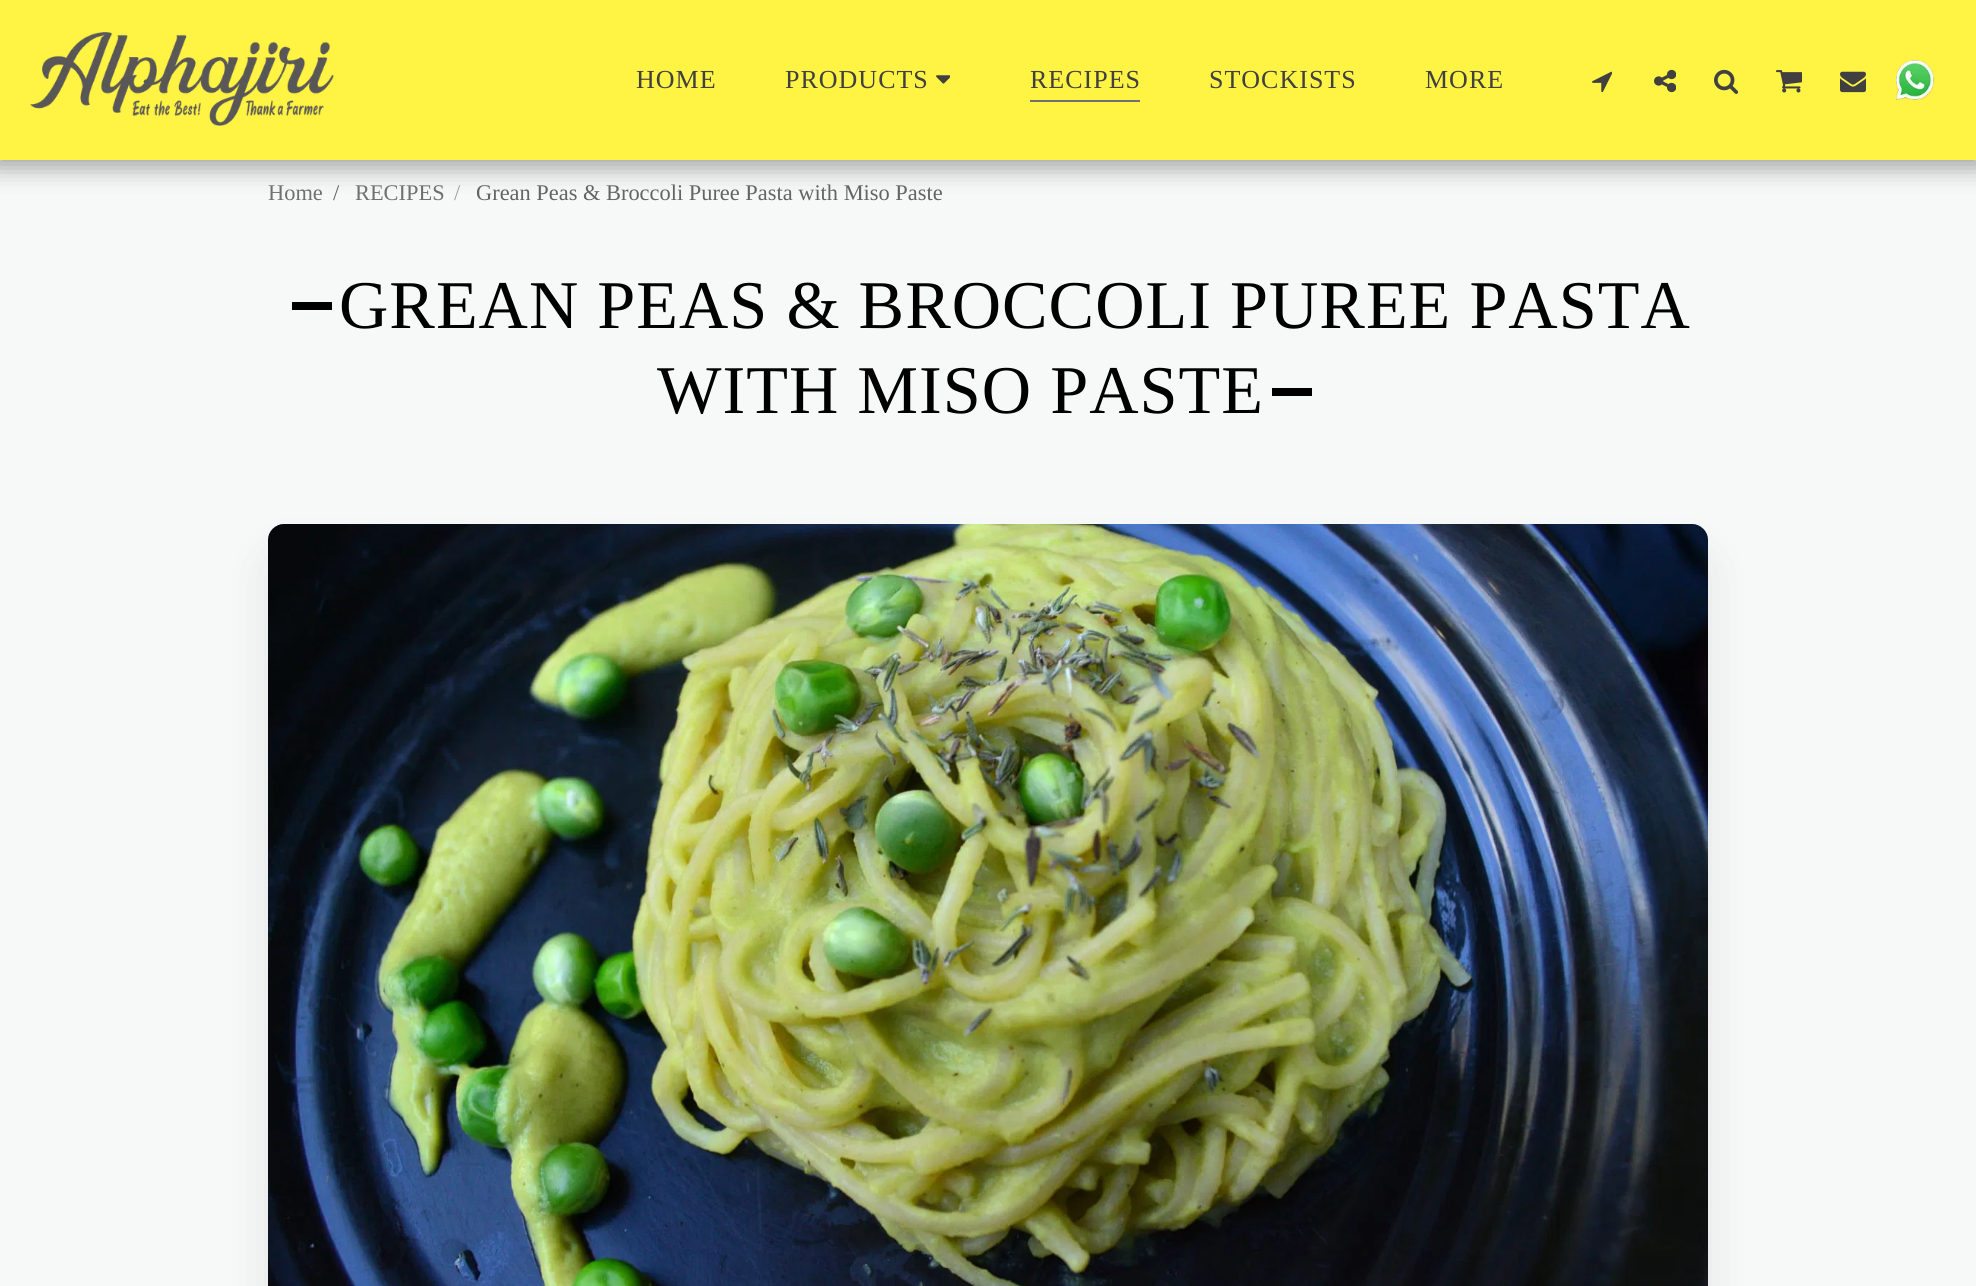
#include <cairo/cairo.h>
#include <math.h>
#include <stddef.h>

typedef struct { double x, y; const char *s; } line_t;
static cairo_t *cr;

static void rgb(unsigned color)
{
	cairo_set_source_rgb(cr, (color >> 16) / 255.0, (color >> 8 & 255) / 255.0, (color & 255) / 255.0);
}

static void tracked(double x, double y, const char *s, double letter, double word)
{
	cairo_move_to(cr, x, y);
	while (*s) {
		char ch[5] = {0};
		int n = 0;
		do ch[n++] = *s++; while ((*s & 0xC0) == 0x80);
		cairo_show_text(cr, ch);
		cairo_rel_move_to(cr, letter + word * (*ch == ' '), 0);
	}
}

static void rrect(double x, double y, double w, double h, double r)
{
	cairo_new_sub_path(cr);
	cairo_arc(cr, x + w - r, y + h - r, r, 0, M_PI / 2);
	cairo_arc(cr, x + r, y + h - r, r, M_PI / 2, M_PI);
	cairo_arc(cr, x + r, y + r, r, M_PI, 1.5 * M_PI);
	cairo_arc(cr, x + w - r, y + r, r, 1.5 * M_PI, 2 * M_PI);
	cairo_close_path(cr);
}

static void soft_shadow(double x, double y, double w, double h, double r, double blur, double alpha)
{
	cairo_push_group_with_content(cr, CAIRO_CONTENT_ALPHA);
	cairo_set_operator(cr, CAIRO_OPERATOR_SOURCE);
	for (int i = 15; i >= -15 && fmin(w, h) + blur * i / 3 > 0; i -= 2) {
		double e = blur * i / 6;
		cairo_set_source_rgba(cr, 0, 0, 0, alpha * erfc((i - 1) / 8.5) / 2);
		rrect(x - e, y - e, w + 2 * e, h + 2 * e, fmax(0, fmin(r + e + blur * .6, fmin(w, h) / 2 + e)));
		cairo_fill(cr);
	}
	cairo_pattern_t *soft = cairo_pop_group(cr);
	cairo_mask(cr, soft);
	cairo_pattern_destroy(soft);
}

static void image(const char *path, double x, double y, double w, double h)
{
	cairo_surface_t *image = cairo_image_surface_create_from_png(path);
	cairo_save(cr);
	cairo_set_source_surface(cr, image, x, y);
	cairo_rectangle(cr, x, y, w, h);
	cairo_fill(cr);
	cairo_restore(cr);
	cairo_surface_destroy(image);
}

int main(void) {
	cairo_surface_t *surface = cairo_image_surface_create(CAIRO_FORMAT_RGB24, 1976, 1286);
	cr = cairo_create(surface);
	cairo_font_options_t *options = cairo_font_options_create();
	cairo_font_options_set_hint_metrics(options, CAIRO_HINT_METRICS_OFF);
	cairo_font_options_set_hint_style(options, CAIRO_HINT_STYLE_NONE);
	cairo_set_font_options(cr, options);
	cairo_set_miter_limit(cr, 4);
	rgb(0xf7f9f8);
	cairo_paint(cr);
	rgb(0x000000);
	soft_shadow(-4, 0, 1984, 168, 0, 12, 0.35);
	rgb(0xfff343);
	cairo_rectangle(cr, 0, 0, 1976, 160);
	cairo_fill(cr);
	image("img/1.png", 30, 32, 304, 94);
	image("img/2.png", 936, 75, 14, 9);
	rgb(0x707070);
	cairo_rectangle(cr, 1030, 100, 110, 2);
	cairo_fill(cr);
	image("img/3.png", 1592, 71, 20, 22);
	image("img/4.png", 1654, 69, 22, 24);
	image("img/5.png", 1714, 69, 24, 25);
	image("img/6.png", 1776, 70, 26, 23);
	image("img/7.png", 1840, 71, 26, 22);
	image("img/8.png", 1896, 60, 38, 40);
	rgb(0x000000);
	cairo_rectangle(cr, 292, 302, 40, 8);
	cairo_fill(cr);
	cairo_rectangle(cr, 1272, 388, 40, 8);
	cairo_fill(cr);
	rgb(0x000000);
	soft_shadow(268, 554, 1440, 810, 16, 25, 0.08);
	image("img/9.png", 268, 524, 1440, 762);
	cairo_select_font_face(cr, "Liberation Serif", CAIRO_FONT_SLANT_NORMAL, CAIRO_FONT_WEIGHT_NORMAL);
	cairo_set_font_size(cr, 26);
	rgb(0x404040);
	{
		static const line_t items[] = {
			{636, 88, "HOME"},
			{785, 88, "PRODUCTS"},
			{1030, 88, "RECIPES"},
			{1209, 88, "STOCKISTS"},
			{1425, 88, "MORE"},
		};
		for (size_t i = 0; i < sizeof items / sizeof *items; i++) {
			tracked(items[i].x, items[i].y, items[i].s, 1, 0);
		}
	}
	cairo_set_font_size(cr, 22.4);
	rgb(0x707070);
	cairo_move_to(cr, 268, 200);
	cairo_show_text(cr, "Home");
	rgb(0x636463);
	cairo_move_to(cr, 333, 200);
	cairo_show_text(cr, "/");
	rgb(0x707070);
	cairo_move_to(cr, 355, 200);
	cairo_show_text(cr, "RECIPES");
	rgb(0x9e9f9f);
	cairo_move_to(cr, 454, 200);
	cairo_show_text(cr, "/");
	rgb(0x636463);
	cairo_move_to(cr, 476, 200);
	cairo_show_text(cr, "Grean Peas & Broccoli Puree Pasta with Miso Paste");
	cairo_set_font_size(cr, 68.3);
	rgb(0x000000);
	tracked(339, 328, "GREAN PEAS & BROCCOLI PUREE PASTA", 1, 0);
	tracked(657, 413, "WITH MISO PASTE", 1, 0);
	cairo_surface_write_to_png(surface, "page.png");
	cairo_font_options_destroy(options);
	cairo_destroy(cr);
	cairo_surface_destroy(surface);
	return 0;
}
